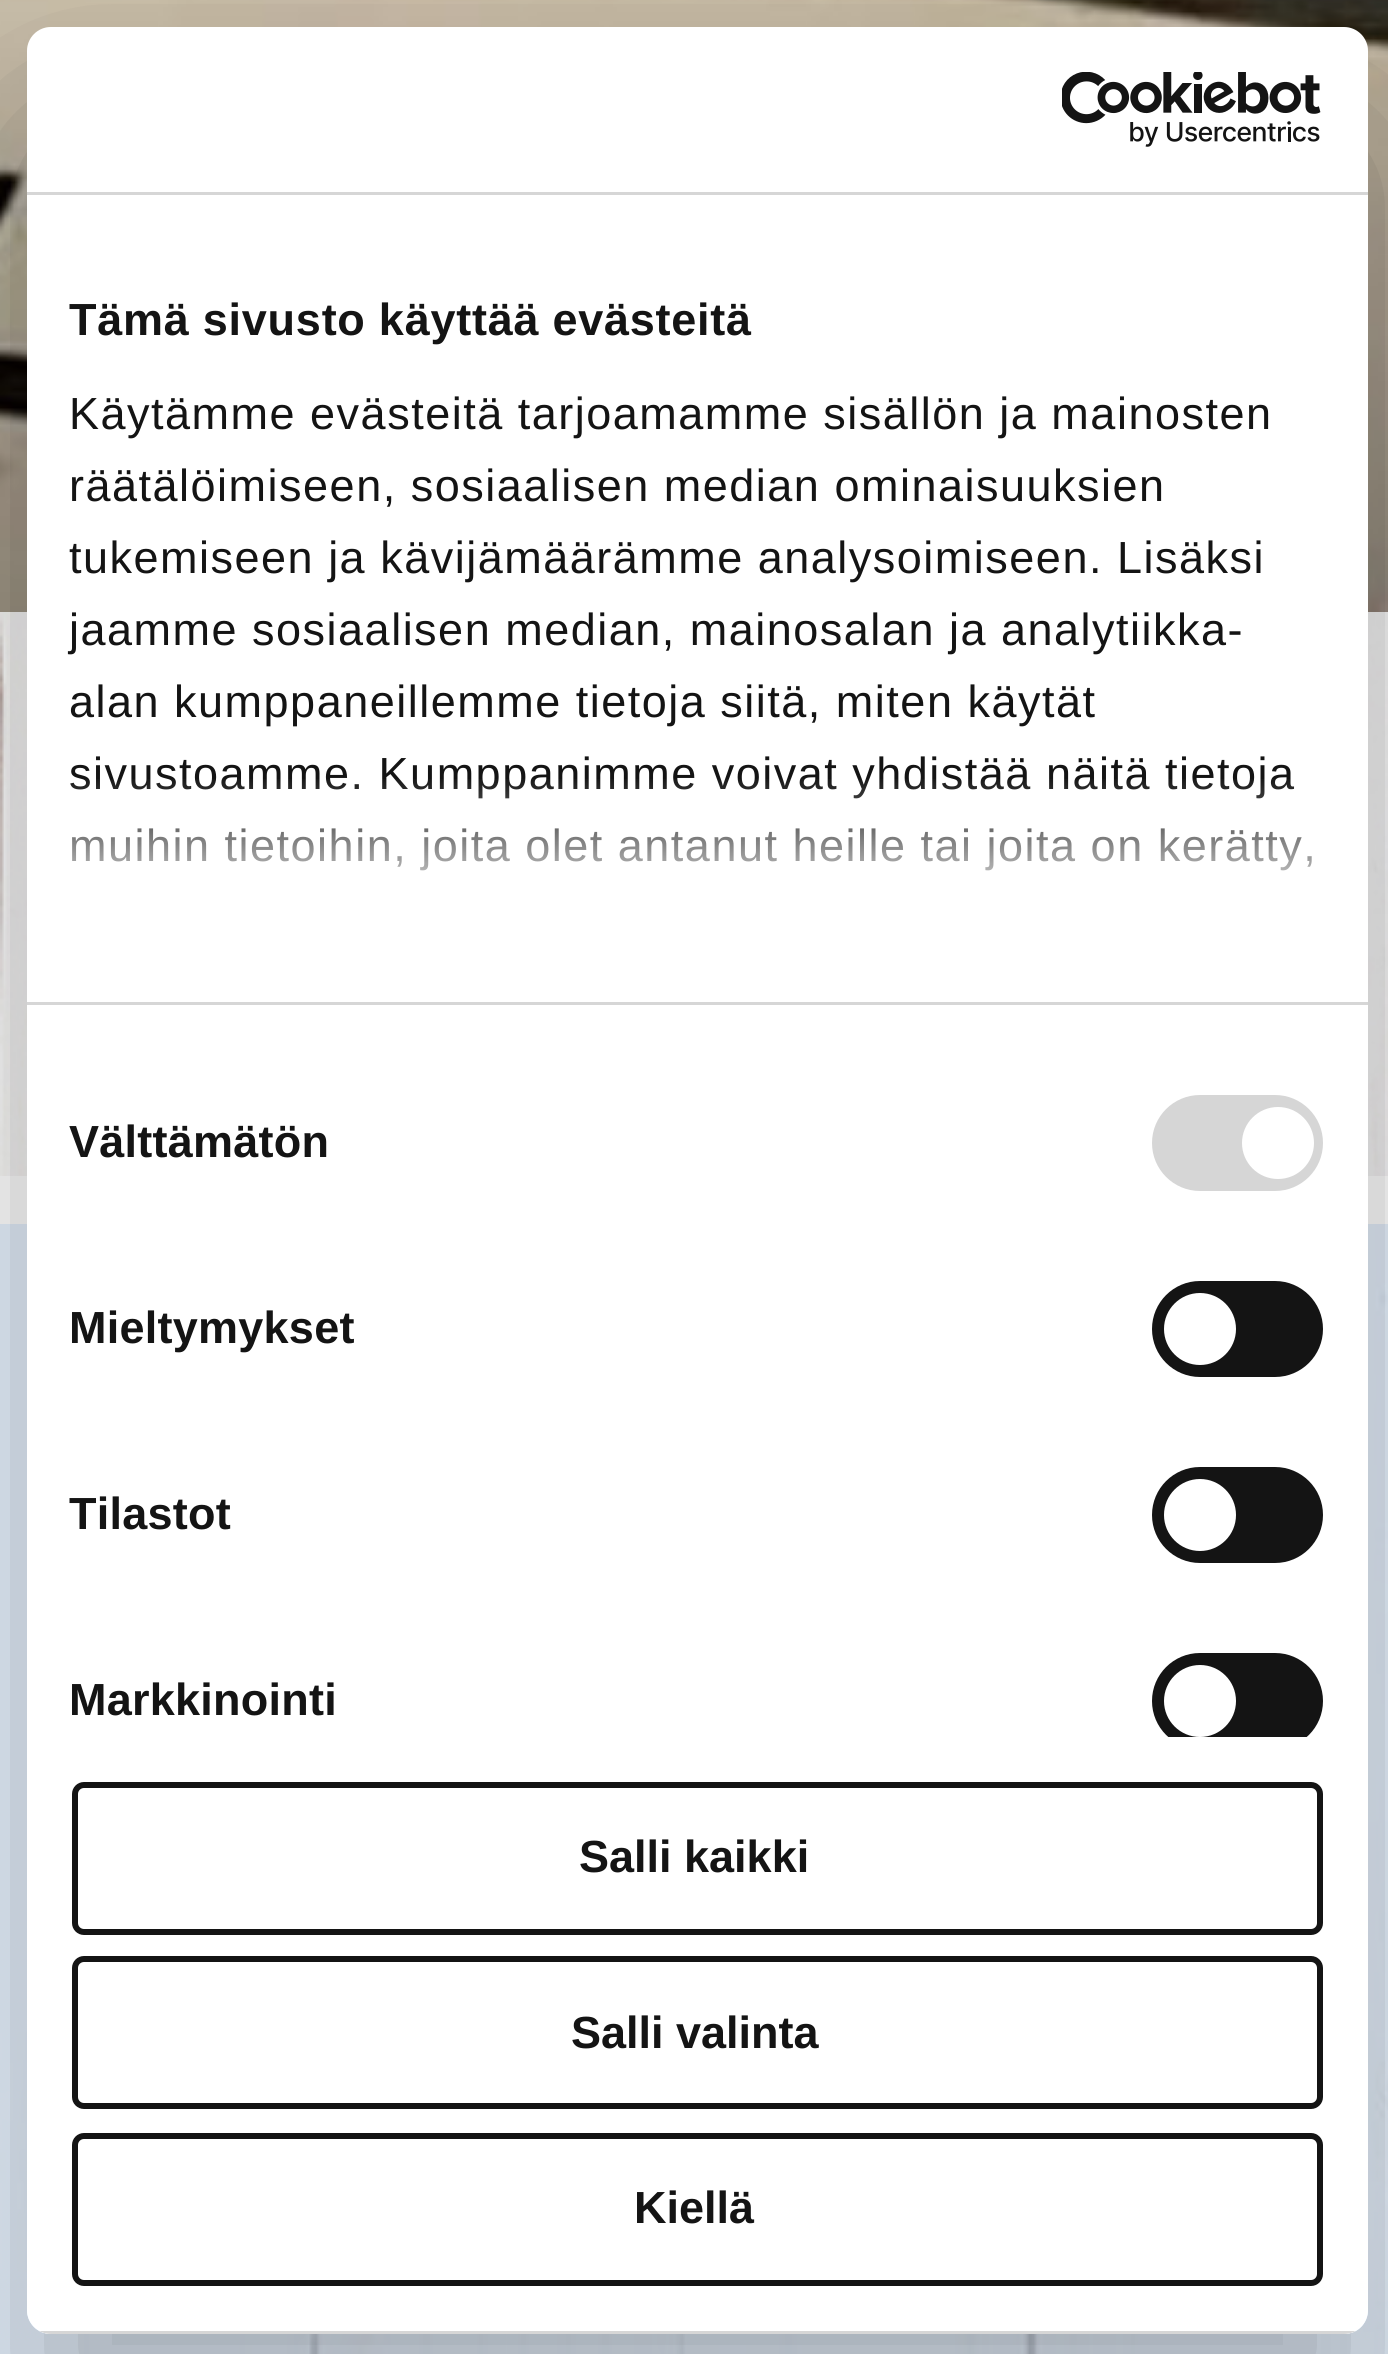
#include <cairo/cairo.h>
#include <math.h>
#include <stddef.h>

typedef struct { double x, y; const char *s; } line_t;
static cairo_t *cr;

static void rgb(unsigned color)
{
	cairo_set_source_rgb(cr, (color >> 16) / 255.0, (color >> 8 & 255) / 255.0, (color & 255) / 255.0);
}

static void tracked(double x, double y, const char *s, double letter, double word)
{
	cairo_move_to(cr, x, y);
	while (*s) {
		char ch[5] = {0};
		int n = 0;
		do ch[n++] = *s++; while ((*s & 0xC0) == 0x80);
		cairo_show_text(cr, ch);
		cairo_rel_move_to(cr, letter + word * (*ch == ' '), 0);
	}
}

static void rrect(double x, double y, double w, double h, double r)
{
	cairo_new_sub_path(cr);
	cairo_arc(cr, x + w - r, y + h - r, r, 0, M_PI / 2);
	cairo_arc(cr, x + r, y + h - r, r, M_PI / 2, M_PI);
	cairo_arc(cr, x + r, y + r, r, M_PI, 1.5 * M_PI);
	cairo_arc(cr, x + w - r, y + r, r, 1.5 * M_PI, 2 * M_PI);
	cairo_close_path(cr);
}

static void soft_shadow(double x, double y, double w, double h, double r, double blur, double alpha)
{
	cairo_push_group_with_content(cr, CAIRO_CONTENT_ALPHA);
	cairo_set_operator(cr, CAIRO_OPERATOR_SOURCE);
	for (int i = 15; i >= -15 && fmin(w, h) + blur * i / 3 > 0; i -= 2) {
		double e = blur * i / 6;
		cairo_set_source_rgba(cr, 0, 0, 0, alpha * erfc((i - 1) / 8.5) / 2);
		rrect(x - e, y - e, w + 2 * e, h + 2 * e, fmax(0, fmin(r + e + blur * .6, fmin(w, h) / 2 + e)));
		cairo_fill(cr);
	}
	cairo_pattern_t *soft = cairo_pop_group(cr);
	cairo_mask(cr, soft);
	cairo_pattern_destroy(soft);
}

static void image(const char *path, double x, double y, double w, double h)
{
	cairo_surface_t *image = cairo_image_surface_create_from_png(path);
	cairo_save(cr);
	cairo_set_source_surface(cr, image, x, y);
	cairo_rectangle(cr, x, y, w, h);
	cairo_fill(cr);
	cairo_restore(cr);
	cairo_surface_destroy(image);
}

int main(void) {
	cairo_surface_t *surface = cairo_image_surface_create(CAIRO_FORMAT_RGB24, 1388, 2354);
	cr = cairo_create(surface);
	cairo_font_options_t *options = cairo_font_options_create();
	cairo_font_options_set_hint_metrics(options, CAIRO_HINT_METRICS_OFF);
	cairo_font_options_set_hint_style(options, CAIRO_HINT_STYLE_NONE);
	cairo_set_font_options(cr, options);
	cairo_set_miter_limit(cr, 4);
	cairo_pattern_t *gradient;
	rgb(0xffffff);
	cairo_paint(cr);
	image("img/1.png", 0, 0, 1388, 612);
	image("img/3.png", 0, 612, 1388, 564);
	image("img/4.png", 0, 1224, 1388, 1130);
	cairo_save(cr);
	cairo_set_fill_rule(cr, CAIRO_FILL_RULE_EVEN_ODD);
	cairo_new_path(cr);
	cairo_move_to(cr, 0, 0);
	cairo_line_to(cr, 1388, 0);
	cairo_line_to(cr, 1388, 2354);
	cairo_line_to(cr, 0, 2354);
	cairo_close_path(cr);
	cairo_move_to(cr, 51, 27);
	cairo_line_to(cr, 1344, 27);
	cairo_curve_to(cr, 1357.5, 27, 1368, 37.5, 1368, 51);
	cairo_line_to(cr, 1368, 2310);
	cairo_curve_to(cr, 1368, 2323.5, 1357.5, 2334, 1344, 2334);
	cairo_line_to(cr, 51, 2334);
	cairo_curve_to(cr, 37.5, 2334, 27, 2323.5, 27, 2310);
	cairo_line_to(cr, 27, 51);
	cairo_curve_to(cr, 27, 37.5, 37.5, 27, 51, 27);
	cairo_close_path(cr);
	cairo_clip(cr);
	rgb(0x000000);
	soft_shadow(27, 123, 1341, 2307, 24, 102, 0.3);
	cairo_restore(cr);
	rgb(0xffffff);
	rrect(27, 27, 1341, 2307, 24);
	cairo_fill(cr);
	rgb(0xd6d6d6);
	cairo_rectangle(cr, 27, 192, 1341, 3);
	cairo_fill(cr);
	image("img/2.png", 1062, 72, 259, 75);
	cairo_rectangle(cr, 27, 1002, 1341, 3);
	cairo_fill(cr);
	rrect(1152, 1095, 171, 96, 48);
	cairo_fill(cr);
	rgb(0xffffff);
	cairo_arc(cr, 1278, 1143, 36, 0, 2 * M_PI);
	cairo_fill(cr);
	rgb(0x141414);
	rrect(1152, 1281, 171, 96, 48);
	cairo_fill(cr);
	rgb(0xffffff);
	cairo_arc(cr, 1200, 1329, 36, 0, 2 * M_PI);
	cairo_fill(cr);
	rgb(0x141414);
	rrect(1152, 1467, 171, 96, 48);
	cairo_fill(cr);
	rgb(0xffffff);
	cairo_arc(cr, 1200, 1515, 36, 0, 2 * M_PI);
	cairo_fill(cr);
	cairo_save(cr);
	cairo_rectangle(cr, 27, 195, 1341, 1542);
	cairo_clip(cr);
	rgb(0x141414);
	rrect(1152, 1653, 171, 96, 48);
	cairo_fill(cr);
	cairo_restore(cr);
	cairo_arc(cr, 1200, 1701, 36, 0, 2 * M_PI);
	cairo_fill(cr);
	cairo_save(cr);
	rrect(27, 27, 1341, 2307, 24);
	cairo_clip(cr);
	rgb(0xd6d6d6);
	cairo_rectangle(cr, 39, 2331, 1317, 3);
	cairo_fill(cr);
	cairo_restore(cr);
	rrect(75, 1785, 1245, 147, 9);
	rgb(0x141414);
	cairo_set_line_width(cr, 6);
	cairo_stroke(cr);
	rrect(75, 1959, 1245, 147, 9);
	cairo_stroke(cr);
	rrect(75, 2136, 1245, 147, 9);
	cairo_stroke(cr);
	cairo_select_font_face(cr, "Liberation Sans", CAIRO_FONT_SLANT_NORMAL, CAIRO_FONT_WEIGHT_BOLD);
	cairo_set_font_size(cr, 45);
	tracked(69, 335, "Tämä sivusto käyttää evästeitä", 0.75, 0);
	cairo_select_font_face(cr, "Liberation Sans", CAIRO_FONT_SLANT_NORMAL, CAIRO_FONT_WEIGHT_NORMAL);
	{
		static const line_t items[] = {
			{69, 429, "Käytämme evästeitä tarjoamamme sisällön ja mainosten"},
			{69, 501, "räätälöimiseen, sosiaalisen median ominaisuuksien"},
			{69, 573, "tukemiseen ja kävijämäärämme analysoimiseen. Lisäksi"},
			{69, 645, "jaamme sosiaalisen median, mainosalan ja analytiikka-"},
			{69, 717, "alan kumppaneillemme tietoja siitä, miten käytät"},
			{69, 789, "sivustoamme. Kumppanimme voivat yhdistää näitä tietoja"},
			{69, 861, "muihin tietoihin, joita olet antanut heille tai joita on kerätty,"},
		};
		for (size_t i = 0; i < sizeof items / sizeof *items; i++) {
			tracked(items[i].x, items[i].y, items[i].s, 1.5, 0);
		}
	}
	gradient = cairo_pattern_create_linear(677, 1001, 677, 776);
	cairo_pattern_add_color_stop_rgba(gradient, 0, 1, 1, 1, 1);
	cairo_pattern_add_color_stop_rgba(gradient, 0.5, 1, 1, 1, 0.8);
	cairo_pattern_add_color_stop_rgba(gradient, 1, 1, 1, 1, 0);
	cairo_set_source(cr, gradient);
	cairo_pattern_destroy(gradient);
	cairo_rectangle(cr, 70, 779, 1242, 92);
	cairo_fill(cr);
	cairo_select_font_face(cr, "Liberation Sans", CAIRO_FONT_SLANT_NORMAL, CAIRO_FONT_WEIGHT_BOLD);
	rgb(0x141414);
	{
		static const line_t items[] = {
			{69, 1157, "Välttämätön"},
			{69, 1343, "Mieltymykset"},
			{69, 1529, "Tilastot"},
			{69, 1715, "Markkinointi"},
		};
		for (size_t i = 0; i < sizeof items / sizeof *items; i++) {
			tracked(items[i].x, items[i].y, items[i].s, 0.25, 0);
		}
	}
	{
		static const line_t items[] = {
			{579, 1872, "Salli kaikki"},
			{571, 2048, "Salli valinta"},
			{634, 2223, "Kiellä"},
		};
		for (size_t i = 0; i < sizeof items / sizeof *items; i++) {
			cairo_move_to(cr, items[i].x, items[i].y);
			cairo_show_text(cr, items[i].s);
		}
	}
	cairo_surface_write_to_png(surface, "page.png");
	cairo_font_options_destroy(options);
	cairo_destroy(cr);
	cairo_surface_destroy(surface);
	return 0;
}
